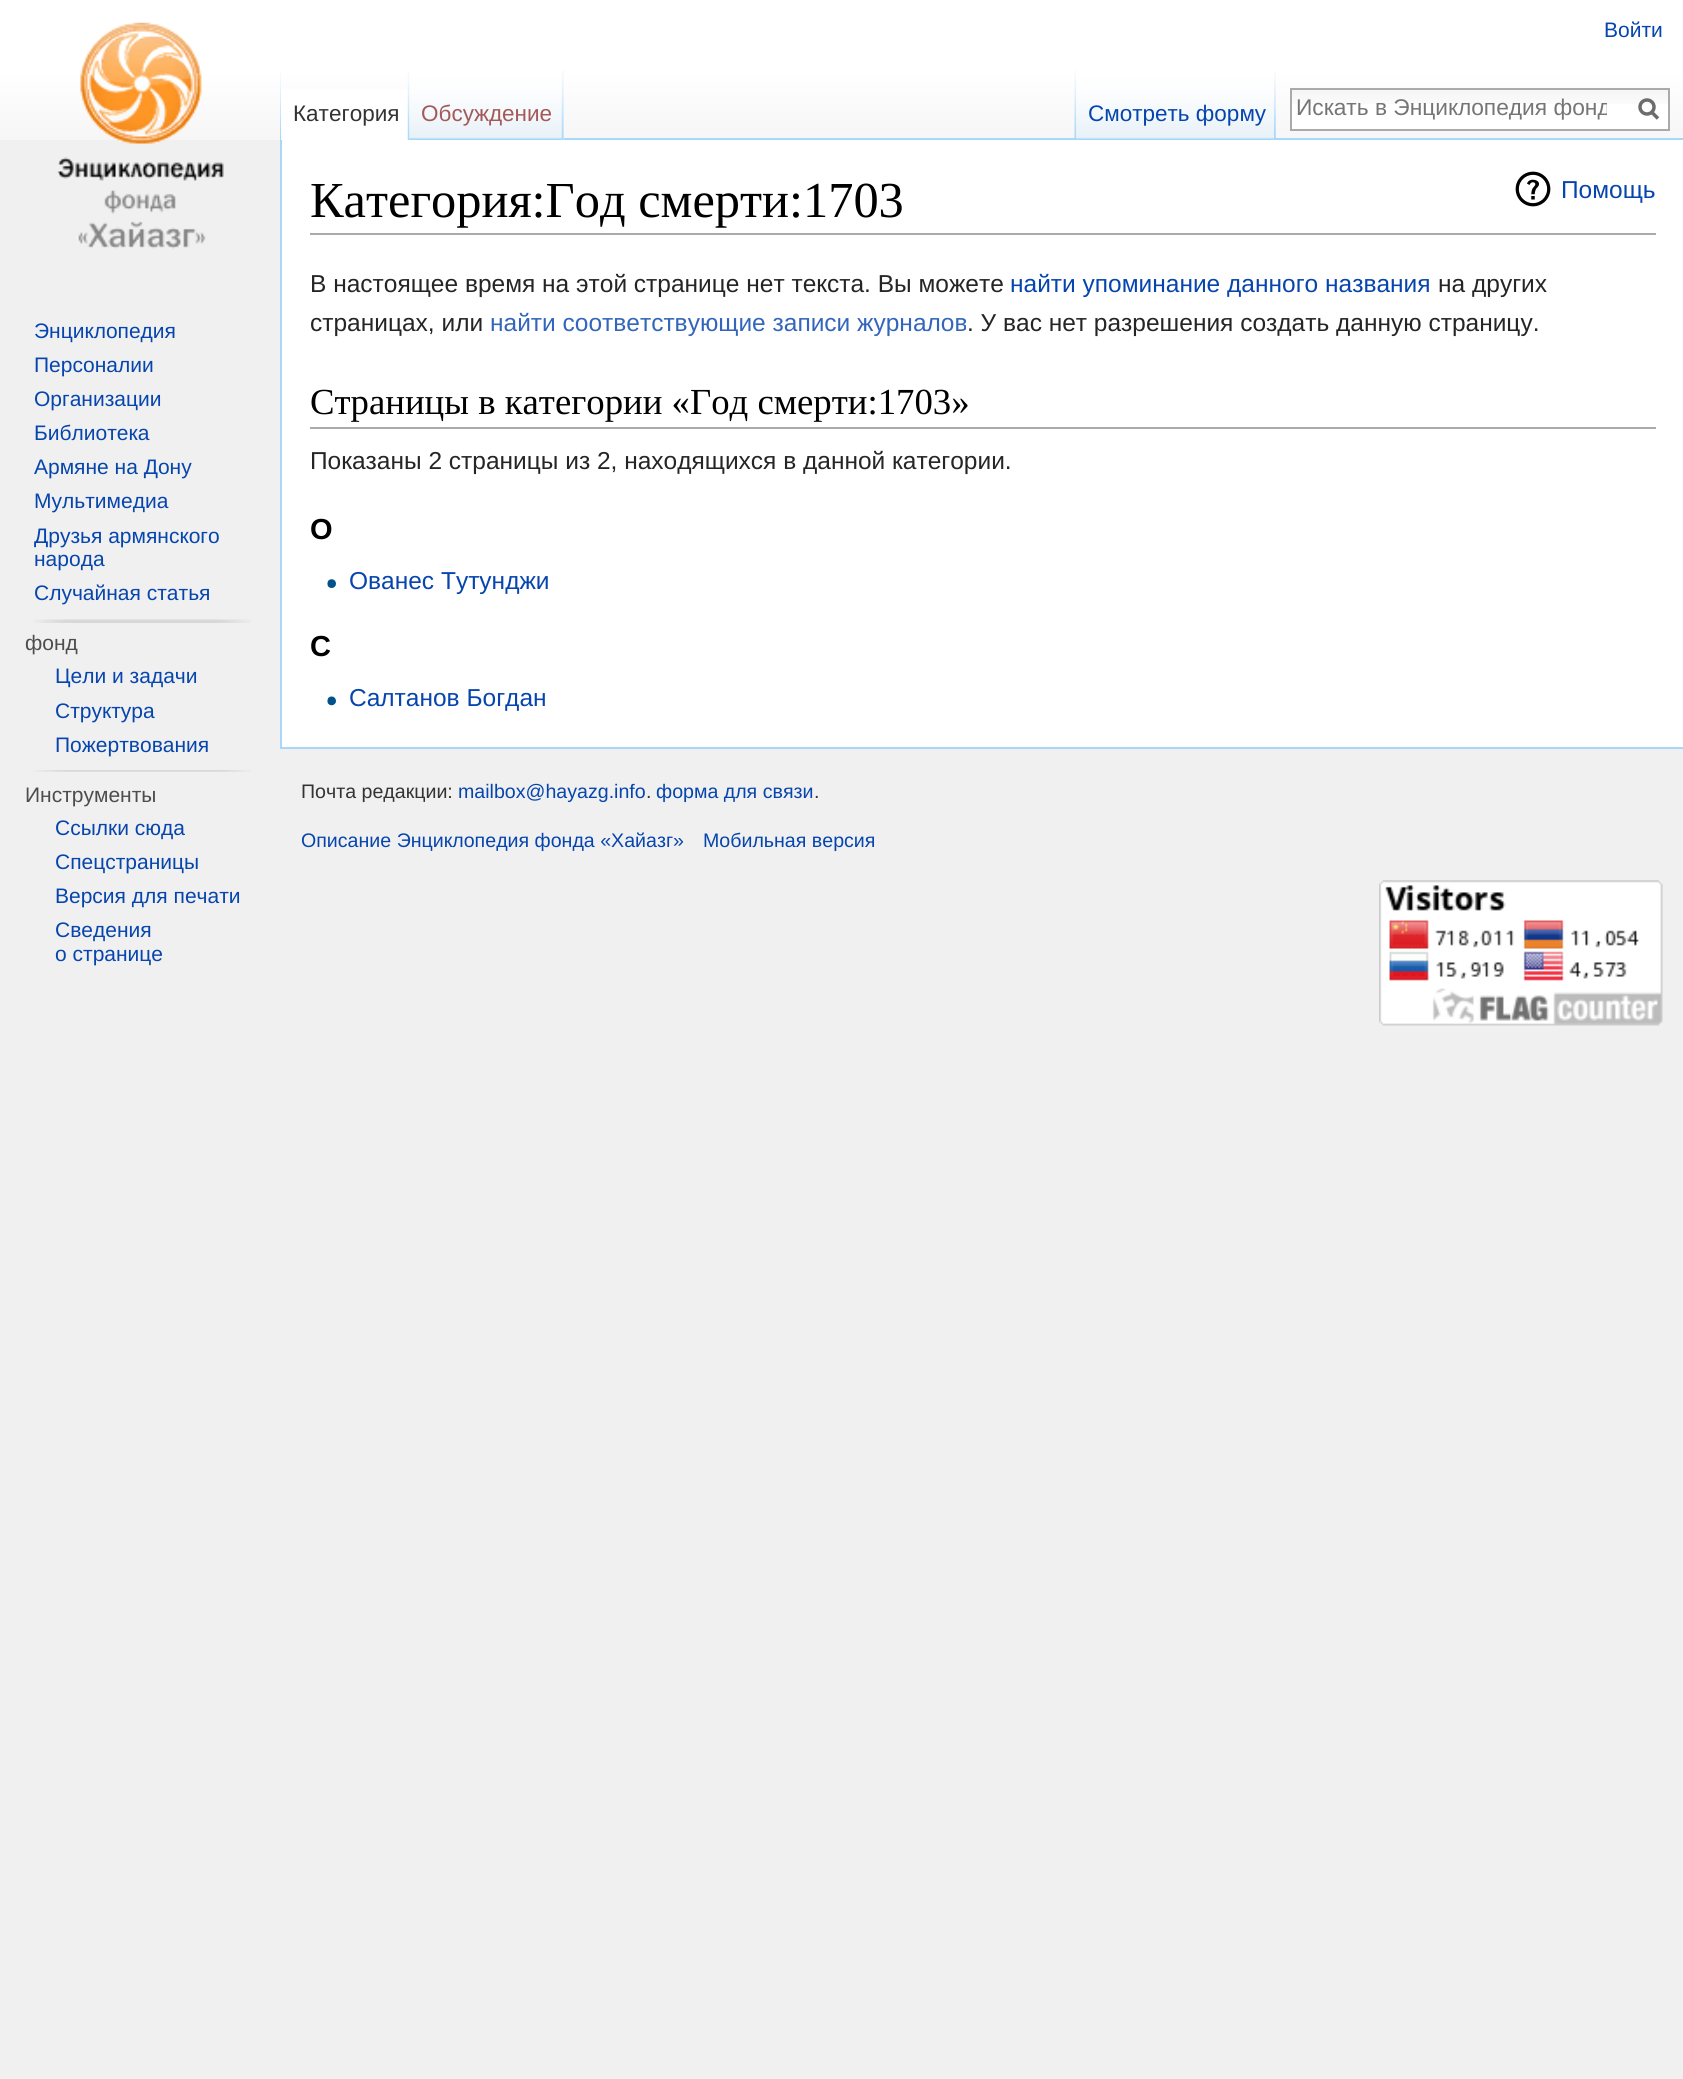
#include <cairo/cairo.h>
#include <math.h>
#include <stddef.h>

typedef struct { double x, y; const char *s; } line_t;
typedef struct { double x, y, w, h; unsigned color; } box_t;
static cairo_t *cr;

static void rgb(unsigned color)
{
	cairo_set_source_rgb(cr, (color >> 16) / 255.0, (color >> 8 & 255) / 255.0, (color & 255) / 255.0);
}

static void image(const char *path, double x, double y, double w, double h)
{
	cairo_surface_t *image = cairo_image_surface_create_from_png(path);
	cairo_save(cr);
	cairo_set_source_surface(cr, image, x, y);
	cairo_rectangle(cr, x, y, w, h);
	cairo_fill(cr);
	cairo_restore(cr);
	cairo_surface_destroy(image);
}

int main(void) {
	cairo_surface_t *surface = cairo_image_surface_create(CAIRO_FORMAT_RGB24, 1683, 2079);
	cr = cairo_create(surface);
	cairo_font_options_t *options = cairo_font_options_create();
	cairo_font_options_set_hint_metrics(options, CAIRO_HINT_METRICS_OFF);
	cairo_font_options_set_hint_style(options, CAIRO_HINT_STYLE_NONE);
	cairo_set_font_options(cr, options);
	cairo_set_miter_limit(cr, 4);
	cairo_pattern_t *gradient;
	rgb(0xf0f0f0);
	cairo_paint(cr);
	gradient = cairo_pattern_create_linear(842, 0, 842, 140);
	cairo_pattern_add_color_stop_rgba(gradient, 0.5, 1, 1, 1, 1);
	cairo_pattern_add_color_stop_rgba(gradient, 1, 0.965, 0.965, 0.965, 1);
	cairo_set_source(cr, gradient);
	cairo_pattern_destroy(gradient);
	cairo_rectangle(cr, 0, 0, 1683, 140);
	cairo_fill(cr);
	image("img/1.png", 280, 70, 1, 68);
	{
		static const box_t items[] = {
			{280, 747, 1403, 2, 0xa7d7f9},
			{280, 138, 2, 611, 0xa7d7f9},
			{281, 89, 129, 51, 0xffffff},
		};
		for (size_t i = 0; i < sizeof items / sizeof *items; i++) {
			rgb(items[i].color);
			cairo_rectangle(cr, items[i].x, items[i].y, items[i].w, items[i].h);
			cairo_fill(cr);
		}
	}
	image("img/2.png", 407, 71, 3, 69);
	rgb(0xf3f3f3);
	cairo_rectangle(cr, 563, 70, 1, 70);
	cairo_fill(cr);
	image("img/3.png", 409, 70, 155, 70);
	image("img/4.png", 561, 71, 3, 69);
	image("img/5.png", 1074, 70, 3, 68);
	image("img/6.png", 1275, 70, 1, 68);
	rgb(0xa7d7f9);
	cairo_rectangle(cr, 564, 138, 1119, 2);
	cairo_fill(cr);
	image("img/7.png", 1076, 70, 200, 70);
	image("img/8.png", 1274, 71, 2, 69);
	rgb(0xffffff);
	cairo_rectangle(cr, 1292, 104, 376, 25);
	cairo_fill(cr);
	image("img/9.png", 1292, 90, 376, 14);
	cairo_rectangle(cr, 1291, 89, 378, 41);
	rgb(0xaaaaaa);
	cairo_stroke(cr);
	cairo_new_path(cr);
	cairo_move_to(cr, 1658, 118.5);
	cairo_line_to(cr, 1651, 111.5);
	rgb(0x6c6c6c);
	cairo_set_line_width(cr, 3.5);
	cairo_stroke(cr);
	cairo_arc(cr, 1647, 107, 7, 0, 2 * M_PI);
	cairo_stroke(cr);
	image("img/10.png", 57, 22, 167, 227);
	image("img/11.png", 34, 619, 217, 4);
	image("img/12.png", 34, 770, 217, 2);
	rgb(0xffffff);
	cairo_rectangle(cr, 282, 140, 1401, 607);
	cairo_fill(cr);
	rgb(0xaaaaaa);
	cairo_rectangle(cr, 310, 233, 1346, 2);
	cairo_fill(cr);
	image("img/13.png", 1515, 171, 36, 36);
	cairo_rectangle(cr, 310, 427, 1346, 2);
	cairo_fill(cr);
	image("img/14.png", 327, 579, 9, 9);
	image("img/15.png", 327, 696, 9, 10);
	image("img/16.png", 1379, 880, 284, 146);
	cairo_select_font_face(cr, "Liberation Sans", CAIRO_FONT_SLANT_NORMAL, CAIRO_FONT_WEIGHT_NORMAL);
	cairo_set_font_size(cr, 21);
	rgb(0x0645ad);
	cairo_move_to(cr, 1604, 37);
	cairo_show_text(cr, "Войти");
	cairo_set_font_size(cr, 22.5);
	rgb(0x333333);
	cairo_move_to(cr, 293, 121);
	cairo_show_text(cr, "Категория");
	rgb(0xa55858);
	cairo_move_to(cr, 421, 121);
	cairo_show_text(cr, "Обсуждение");
	rgb(0x0645ad);
	cairo_move_to(cr, 1088, 121);
	cairo_show_text(cr, "Смотреть форму");
	cairo_save(cr);
	cairo_rectangle(cr, 1297, 95, 310, 26);
	cairo_clip(cr);
	cairo_set_font_size(cr, 22.75);
	rgb(0x757575);
	cairo_move_to(cr, 1296, 115);
	cairo_show_text(cr, "Искать в Энциклопедия фонд");
	cairo_restore(cr);
	cairo_set_font_size(cr, 21);
	{
		static const line_t items[] = {
			{34, 338, "Энциклопедия"},
			{34, 372, "Персоналии"},
			{34, 406, "Организации"},
			{34, 440, "Библиотека"},
			{34, 474, "Армяне на Дону"},
			{34, 508, "Мультимедиа"},
			{34, 543, "Друзья армянского"},
			{34, 566, "народа"},
			{34, 600, "Случайная статья"},
		};
		for (size_t i = 0; i < sizeof items / sizeof *items; i++) {
			cairo_move_to(cr, items[i].x, items[i].y);
			cairo_show_text(cr, items[i].s);
		}
	}
	rgb(0x4d4d4d);
	cairo_move_to(cr, 25, 650);
	cairo_show_text(cr, "фонд");
	rgb(0x0645ad);
	{
		static const line_t items[] = {
			{55, 683, "Цели и задачи"},
			{55, 718, "Структура"},
			{55, 752, "Пожертвования"},
		};
		for (size_t i = 0; i < sizeof items / sizeof *items; i++) {
			cairo_move_to(cr, items[i].x, items[i].y);
			cairo_show_text(cr, items[i].s);
		}
	}
	rgb(0x4d4d4d);
	cairo_move_to(cr, 25, 802);
	cairo_show_text(cr, "Инструменты");
	rgb(0x0645ad);
	{
		static const line_t items[] = {
			{55, 835, "Ссылки сюда"},
			{55, 869, "Спецстраницы"},
			{55, 903, "Версия для печати"},
			{55, 937, "Сведения"},
			{55, 961, "о странице"},
		};
		for (size_t i = 0; i < sizeof items / sizeof *items; i++) {
			cairo_move_to(cr, items[i].x, items[i].y);
			cairo_show_text(cr, items[i].s);
		}
	}
	cairo_select_font_face(cr, "Liberation Serif", CAIRO_FONT_SLANT_NORMAL, CAIRO_FONT_WEIGHT_NORMAL);
	cairo_set_font_size(cr, 50.4);
	rgb(0x000000);
	cairo_move_to(cr, 310, 217);
	cairo_show_text(cr, "Категория:Год смерти:1703");
	cairo_select_font_face(cr, "Liberation Sans", CAIRO_FONT_SLANT_NORMAL, CAIRO_FONT_WEIGHT_NORMAL);
	cairo_set_font_size(cr, 24.5);
	rgb(0x0645ad);
	cairo_move_to(cr, 1561, 198);
	cairo_show_text(cr, "Помощь");
	rgb(0x252525);
	cairo_move_to(cr, 310, 292);
	cairo_show_text(cr, "В настоящее время на этой странице нет текста. Вы можете");
	rgb(0x0645ad);
	cairo_move_to(cr, 1010, 292);
	cairo_show_text(cr, "найти упоминание данного названия");
	rgb(0x252525);
	cairo_move_to(cr, 1438, 292);
	cairo_show_text(cr, "на других");
	cairo_move_to(cr, 310, 331);
	cairo_show_text(cr, "страницах, или");
	rgb(0x3366bb);
	cairo_move_to(cr, 490, 331);
	cairo_show_text(cr, "найти соответствующие записи журналов");
	rgb(0x252525);
	cairo_move_to(cr, 967, 331);
	cairo_show_text(cr, ". У вас нет разрешения создать данную страницу.");
	cairo_select_font_face(cr, "Liberation Serif", CAIRO_FONT_SLANT_NORMAL, CAIRO_FONT_WEIGHT_NORMAL);
	cairo_set_font_size(cr, 36.75);
	rgb(0x000000);
	cairo_move_to(cr, 310, 414);
	cairo_show_text(cr, "Страницы в категории «Год смерти:1703»");
	cairo_select_font_face(cr, "Liberation Sans", CAIRO_FONT_SLANT_NORMAL, CAIRO_FONT_WEIGHT_NORMAL);
	cairo_set_font_size(cr, 24.5);
	rgb(0x252525);
	cairo_move_to(cr, 310, 469);
	cairo_show_text(cr, "Показаны 2 страницы из 2, находящихся в данной категории.");
	cairo_select_font_face(cr, "Liberation Sans", CAIRO_FONT_SLANT_NORMAL, CAIRO_FONT_WEIGHT_BOLD);
	cairo_set_font_size(cr, 29);
	rgb(0x000000);
	cairo_move_to(cr, 310, 539);
	cairo_show_text(cr, "О");
	cairo_select_font_face(cr, "Liberation Sans", CAIRO_FONT_SLANT_NORMAL, CAIRO_FONT_WEIGHT_NORMAL);
	cairo_set_font_size(cr, 24.5);
	rgb(0x0645ad);
	cairo_move_to(cr, 349, 589);
	cairo_show_text(cr, "Ованес Тутунджи");
	cairo_select_font_face(cr, "Liberation Sans", CAIRO_FONT_SLANT_NORMAL, CAIRO_FONT_WEIGHT_BOLD);
	cairo_set_font_size(cr, 29);
	rgb(0x000000);
	cairo_move_to(cr, 310, 656);
	cairo_show_text(cr, "С");
	cairo_select_font_face(cr, "Liberation Sans", CAIRO_FONT_SLANT_NORMAL, CAIRO_FONT_WEIGHT_NORMAL);
	cairo_set_font_size(cr, 24.5);
	rgb(0x0645ad);
	cairo_move_to(cr, 349, 706);
	cairo_show_text(cr, "Салтанов Богдан");
	cairo_set_font_size(cr, 19.6);
	rgb(0x333333);
	cairo_move_to(cr, 301, 798);
	cairo_show_text(cr, "Почта редакции:");
	rgb(0x0645ad);
	cairo_move_to(cr, 458, 798);
	cairo_show_text(cr, "mailbox@hayazg.info");
	rgb(0x333333);
	cairo_move_to(cr, 646, 798);
	cairo_show_text(cr, ".");
	rgb(0x0645ad);
	cairo_move_to(cr, 656, 798);
	cairo_show_text(cr, "форма для связи");
	rgb(0x333333);
	cairo_move_to(cr, 814, 798);
	cairo_show_text(cr, ".");
	rgb(0x0645ad);
	cairo_move_to(cr, 301, 847);
	cairo_show_text(cr, "Описание Энциклопедия фонда «Хайазг»");
	cairo_move_to(cr, 703, 847);
	cairo_show_text(cr, "Мобильная версия");
	cairo_surface_write_to_png(surface, "page.png");
	cairo_font_options_destroy(options);
	cairo_destroy(cr);
	cairo_surface_destroy(surface);
	return 0;
}
